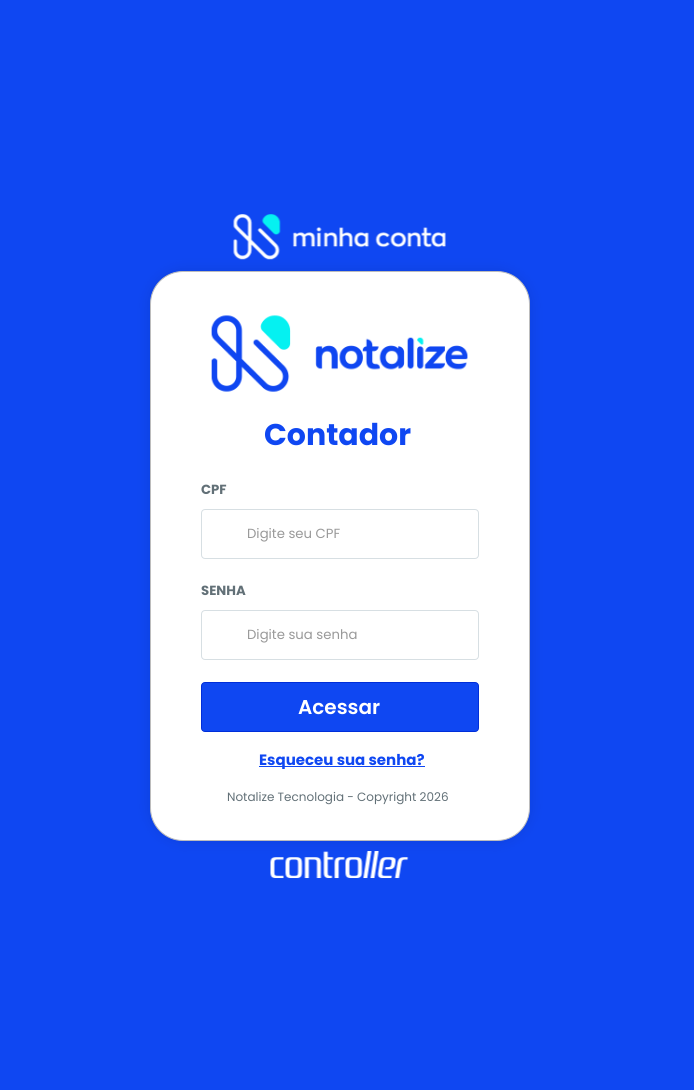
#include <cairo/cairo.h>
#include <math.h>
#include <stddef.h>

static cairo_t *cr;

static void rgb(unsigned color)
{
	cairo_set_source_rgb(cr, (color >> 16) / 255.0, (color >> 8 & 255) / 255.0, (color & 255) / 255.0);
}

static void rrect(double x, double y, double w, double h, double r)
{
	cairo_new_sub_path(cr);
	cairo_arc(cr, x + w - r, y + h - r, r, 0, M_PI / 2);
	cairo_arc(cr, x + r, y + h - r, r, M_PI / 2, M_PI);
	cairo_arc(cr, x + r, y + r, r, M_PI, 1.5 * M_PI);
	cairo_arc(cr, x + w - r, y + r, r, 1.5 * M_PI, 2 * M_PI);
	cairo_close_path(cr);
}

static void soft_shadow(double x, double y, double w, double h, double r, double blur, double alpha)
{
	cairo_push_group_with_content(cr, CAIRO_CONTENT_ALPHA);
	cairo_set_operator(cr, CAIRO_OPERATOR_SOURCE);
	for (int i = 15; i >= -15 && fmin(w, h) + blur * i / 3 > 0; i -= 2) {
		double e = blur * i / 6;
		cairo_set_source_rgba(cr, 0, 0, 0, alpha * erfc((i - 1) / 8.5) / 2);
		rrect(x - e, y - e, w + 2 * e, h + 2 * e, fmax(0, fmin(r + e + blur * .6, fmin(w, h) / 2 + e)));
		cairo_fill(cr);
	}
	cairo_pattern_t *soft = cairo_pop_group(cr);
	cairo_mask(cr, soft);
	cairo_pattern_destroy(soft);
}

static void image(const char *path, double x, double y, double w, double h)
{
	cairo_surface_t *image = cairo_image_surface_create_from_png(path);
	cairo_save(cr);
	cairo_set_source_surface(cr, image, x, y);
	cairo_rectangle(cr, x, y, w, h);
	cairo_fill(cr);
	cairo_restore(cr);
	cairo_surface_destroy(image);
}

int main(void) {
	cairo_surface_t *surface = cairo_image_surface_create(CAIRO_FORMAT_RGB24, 694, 1090);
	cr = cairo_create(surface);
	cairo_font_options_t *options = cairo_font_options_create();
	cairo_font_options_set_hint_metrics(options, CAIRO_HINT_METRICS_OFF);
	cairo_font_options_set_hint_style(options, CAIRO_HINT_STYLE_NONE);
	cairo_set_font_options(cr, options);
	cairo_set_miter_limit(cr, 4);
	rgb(0x0f47f2);
	cairo_paint(cr);
	image("img/1.png", 233, 214, 213, 46);
	rgb(0x000000);
	soft_shadow(150, 271, 380, 570, 33, 7, 0.1);
	rgb(0xffffff);
	rrect(150.5, 271.5, 379, 569, 32.5);
	cairo_fill_preserve(cr);
	rgb(0xbcbcbc);
	cairo_set_line_width(cr, 1);
	cairo_stroke(cr);
	image("img/2.png", 211, 315, 257, 77);
	rrect(201.5, 509.5, 277, 49, 3.5);
	rgb(0xd7dfe3);
	cairo_stroke(cr);
	rrect(201.5, 610.5, 277, 49, 3.5);
	cairo_stroke(cr);
	rgb(0x0f47f2);
	rrect(201.5, 682.5, 277, 49, 3.5);
	cairo_fill_preserve(cr);
	rgb(0x002ed9);
	cairo_stroke(cr);
	rgb(0x0f47f2);
	cairo_rectangle(cr, 259, 766, 166, 1);
	cairo_fill(cr);
	image("img/3.png", 270, 851, 139, 28);
	cairo_select_font_face(cr, "Poppins", CAIRO_FONT_SLANT_NORMAL, CAIRO_FONT_WEIGHT_BOLD);
	cairo_set_font_size(cr, 30);
	cairo_move_to(cr, 264, 445);
	cairo_show_text(cr, "Contador");
	cairo_set_font_size(cr, 13.25);
	rgb(0x627077);
	cairo_move_to(cr, 201, 494);
	cairo_show_text(cr, "CPF");
	cairo_select_font_face(cr, "Poppins", CAIRO_FONT_SLANT_NORMAL, CAIRO_FONT_WEIGHT_NORMAL);
	rgb(0x999999);
	cairo_move_to(cr, 247, 538);
	cairo_show_text(cr, "Digite seu CPF");
	cairo_select_font_face(cr, "Poppins", CAIRO_FONT_SLANT_NORMAL, CAIRO_FONT_WEIGHT_BOLD);
	rgb(0x627077);
	cairo_move_to(cr, 201, 595);
	cairo_show_text(cr, "SENHA");
	cairo_select_font_face(cr, "Poppins", CAIRO_FONT_SLANT_NORMAL, CAIRO_FONT_WEIGHT_NORMAL);
	rgb(0x999999);
	cairo_move_to(cr, 247, 639);
	cairo_show_text(cr, "Digite sua senha");
	cairo_select_font_face(cr, "Poppins SemiBold", CAIRO_FONT_SLANT_NORMAL, CAIRO_FONT_WEIGHT_NORMAL);
	cairo_set_font_size(cr, 20);
	rgb(0xffffff);
	cairo_move_to(cr, 298, 714);
	cairo_show_text(cr, "Acessar");
	cairo_select_font_face(cr, "Poppins", CAIRO_FONT_SLANT_NORMAL, CAIRO_FONT_WEIGHT_BOLD);
	cairo_set_font_size(cr, 15);
	rgb(0x0f47f2);
	cairo_move_to(cr, 259, 765);
	cairo_show_text(cr, "Esqueceu sua senha?");
	cairo_select_font_face(cr, "Poppins", CAIRO_FONT_SLANT_NORMAL, CAIRO_FONT_WEIGHT_NORMAL);
	cairo_set_font_size(cr, 12);
	rgb(0x627077);
	cairo_move_to(cr, 227, 801);
	cairo_show_text(cr, "Notalize Tecnologia - Copyright 2026");
	cairo_surface_write_to_png(surface, "page.png");
	cairo_font_options_destroy(options);
	cairo_destroy(cr);
	cairo_surface_destroy(surface);
	return 0;
}
